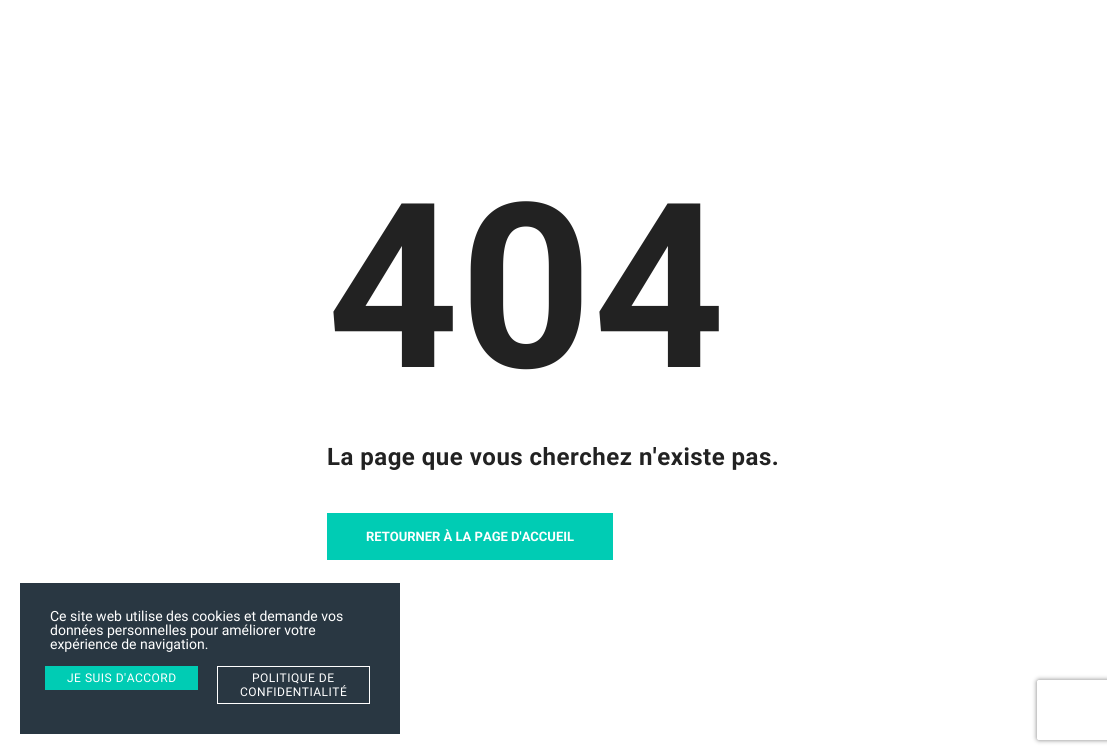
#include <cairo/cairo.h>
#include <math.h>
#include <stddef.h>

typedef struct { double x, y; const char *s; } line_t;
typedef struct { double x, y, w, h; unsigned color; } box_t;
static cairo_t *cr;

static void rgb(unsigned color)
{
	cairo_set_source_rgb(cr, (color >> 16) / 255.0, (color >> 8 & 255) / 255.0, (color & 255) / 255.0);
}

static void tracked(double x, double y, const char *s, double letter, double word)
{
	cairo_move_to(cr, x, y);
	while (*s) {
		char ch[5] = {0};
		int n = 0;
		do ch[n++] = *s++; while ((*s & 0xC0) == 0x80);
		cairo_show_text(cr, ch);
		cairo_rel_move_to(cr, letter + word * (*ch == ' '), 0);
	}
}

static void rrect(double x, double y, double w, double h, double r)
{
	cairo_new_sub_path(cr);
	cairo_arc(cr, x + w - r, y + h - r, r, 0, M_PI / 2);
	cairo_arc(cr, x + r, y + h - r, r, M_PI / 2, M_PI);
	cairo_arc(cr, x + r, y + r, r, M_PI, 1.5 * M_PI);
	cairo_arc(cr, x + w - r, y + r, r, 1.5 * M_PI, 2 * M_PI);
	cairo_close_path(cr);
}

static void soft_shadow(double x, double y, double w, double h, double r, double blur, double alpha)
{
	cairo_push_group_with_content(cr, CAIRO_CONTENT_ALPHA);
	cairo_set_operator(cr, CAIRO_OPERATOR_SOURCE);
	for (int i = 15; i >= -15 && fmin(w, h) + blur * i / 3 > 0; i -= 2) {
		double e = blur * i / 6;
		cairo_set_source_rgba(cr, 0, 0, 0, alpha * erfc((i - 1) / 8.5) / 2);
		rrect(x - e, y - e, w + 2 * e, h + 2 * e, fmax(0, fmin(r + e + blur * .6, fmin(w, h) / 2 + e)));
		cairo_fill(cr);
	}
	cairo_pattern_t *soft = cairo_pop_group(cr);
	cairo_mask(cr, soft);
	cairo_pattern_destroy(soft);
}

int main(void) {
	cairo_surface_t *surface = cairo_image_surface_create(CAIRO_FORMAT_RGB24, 1107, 754);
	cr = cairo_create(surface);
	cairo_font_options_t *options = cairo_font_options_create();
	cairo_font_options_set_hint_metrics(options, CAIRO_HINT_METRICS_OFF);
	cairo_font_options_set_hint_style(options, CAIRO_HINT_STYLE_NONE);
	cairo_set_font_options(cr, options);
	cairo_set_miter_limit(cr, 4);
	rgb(0xffffff);
	cairo_paint(cr);
	{
		static const box_t items[] = {
			{327, 513, 286, 47, 0x00ccb4},
			{20, 583, 380, 151, 0x293742},
			{45, 666, 153, 24, 0x00ccb4},
		};
		for (size_t i = 0; i < sizeof items / sizeof *items; i++) {
			rgb(items[i].color);
			cairo_rectangle(cr, items[i].x, items[i].y, items[i].w, items[i].h);
			cairo_fill(cr);
		}
	}
	cairo_rectangle(cr, 217.5, 666.5, 152, 37);
	rgb(0xffffff);
	cairo_set_line_width(cr, 1);
	cairo_stroke(cr);
	cairo_save(cr);
	cairo_set_fill_rule(cr, CAIRO_FILL_RULE_EVEN_ODD);
	cairo_new_path(cr);
	cairo_move_to(cr, 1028, 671);
	cairo_line_to(cr, 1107, 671);
	cairo_line_to(cr, 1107, 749);
	cairo_line_to(cr, 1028, 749);
	cairo_close_path(cr);
	cairo_move_to(cr, 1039, 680);
	cairo_line_to(cr, 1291, 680);
	cairo_curve_to(cr, 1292, 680, 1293, 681, 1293, 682);
	cairo_line_to(cr, 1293, 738);
	cairo_curve_to(cr, 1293, 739, 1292, 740, 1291, 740);
	cairo_line_to(cr, 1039, 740);
	cairo_curve_to(cr, 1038, 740, 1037, 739, 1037, 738);
	cairo_line_to(cr, 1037, 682);
	cairo_curve_to(cr, 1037, 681, 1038, 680, 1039, 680);
	cairo_close_path(cr);
	cairo_clip(cr);
	rgb(0x808080);
	soft_shadow(1037, 680, 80, 60, 2, 2.5, 1);
	cairo_restore(cr);
	cairo_select_font_face(cr, "Roboto", CAIRO_FONT_SLANT_NORMAL, CAIRO_FONT_WEIGHT_BOLD);
	cairo_set_font_size(cr, 230);
	rgb(0x222222);
	tracked(327, 367, "404", 1, 0);
	cairo_set_font_size(cr, 24);
	tracked(327, 465, "La page que vous cherchez n'existe pas.", 0.5, 0);
	cairo_set_font_size(cr, 13);
	rgb(0xffffff);
	cairo_move_to(cr, 366, 541);
	cairo_show_text(cr, "RETOURNER À LA PAGE D'ACCUEIL");
	cairo_select_font_face(cr, "Roboto", CAIRO_FONT_SLANT_NORMAL, CAIRO_FONT_WEIGHT_NORMAL);
	cairo_set_font_size(cr, 14);
	{
		static const line_t items[] = {
			{50, 621, "Ce site web utilise des cookies et demande vos"},
			{50, 635, "données personnelles pour améliorer votre"},
			{50, 649, "expérience de navigation."},
		};
		for (size_t i = 0; i < sizeof items / sizeof *items; i++) {
			cairo_move_to(cr, items[i].x, items[i].y);
			cairo_show_text(cr, items[i].s);
		}
	}
	cairo_set_font_size(cr, 12);
	{
		static const line_t items[] = {
			{67, 682, "JE SUIS D'ACCORD"},
			{252, 682, "POLITIQUE DE"},
			{240, 696, "CONFIDENTIALITÉ"},
		};
		for (size_t i = 0; i < sizeof items / sizeof *items; i++) {
			tracked(items[i].x, items[i].y, items[i].s, 0.5, 0);
		}
	}
	cairo_surface_write_to_png(surface, "page.png");
	cairo_font_options_destroy(options);
	cairo_destroy(cr);
	cairo_surface_destroy(surface);
	return 0;
}
